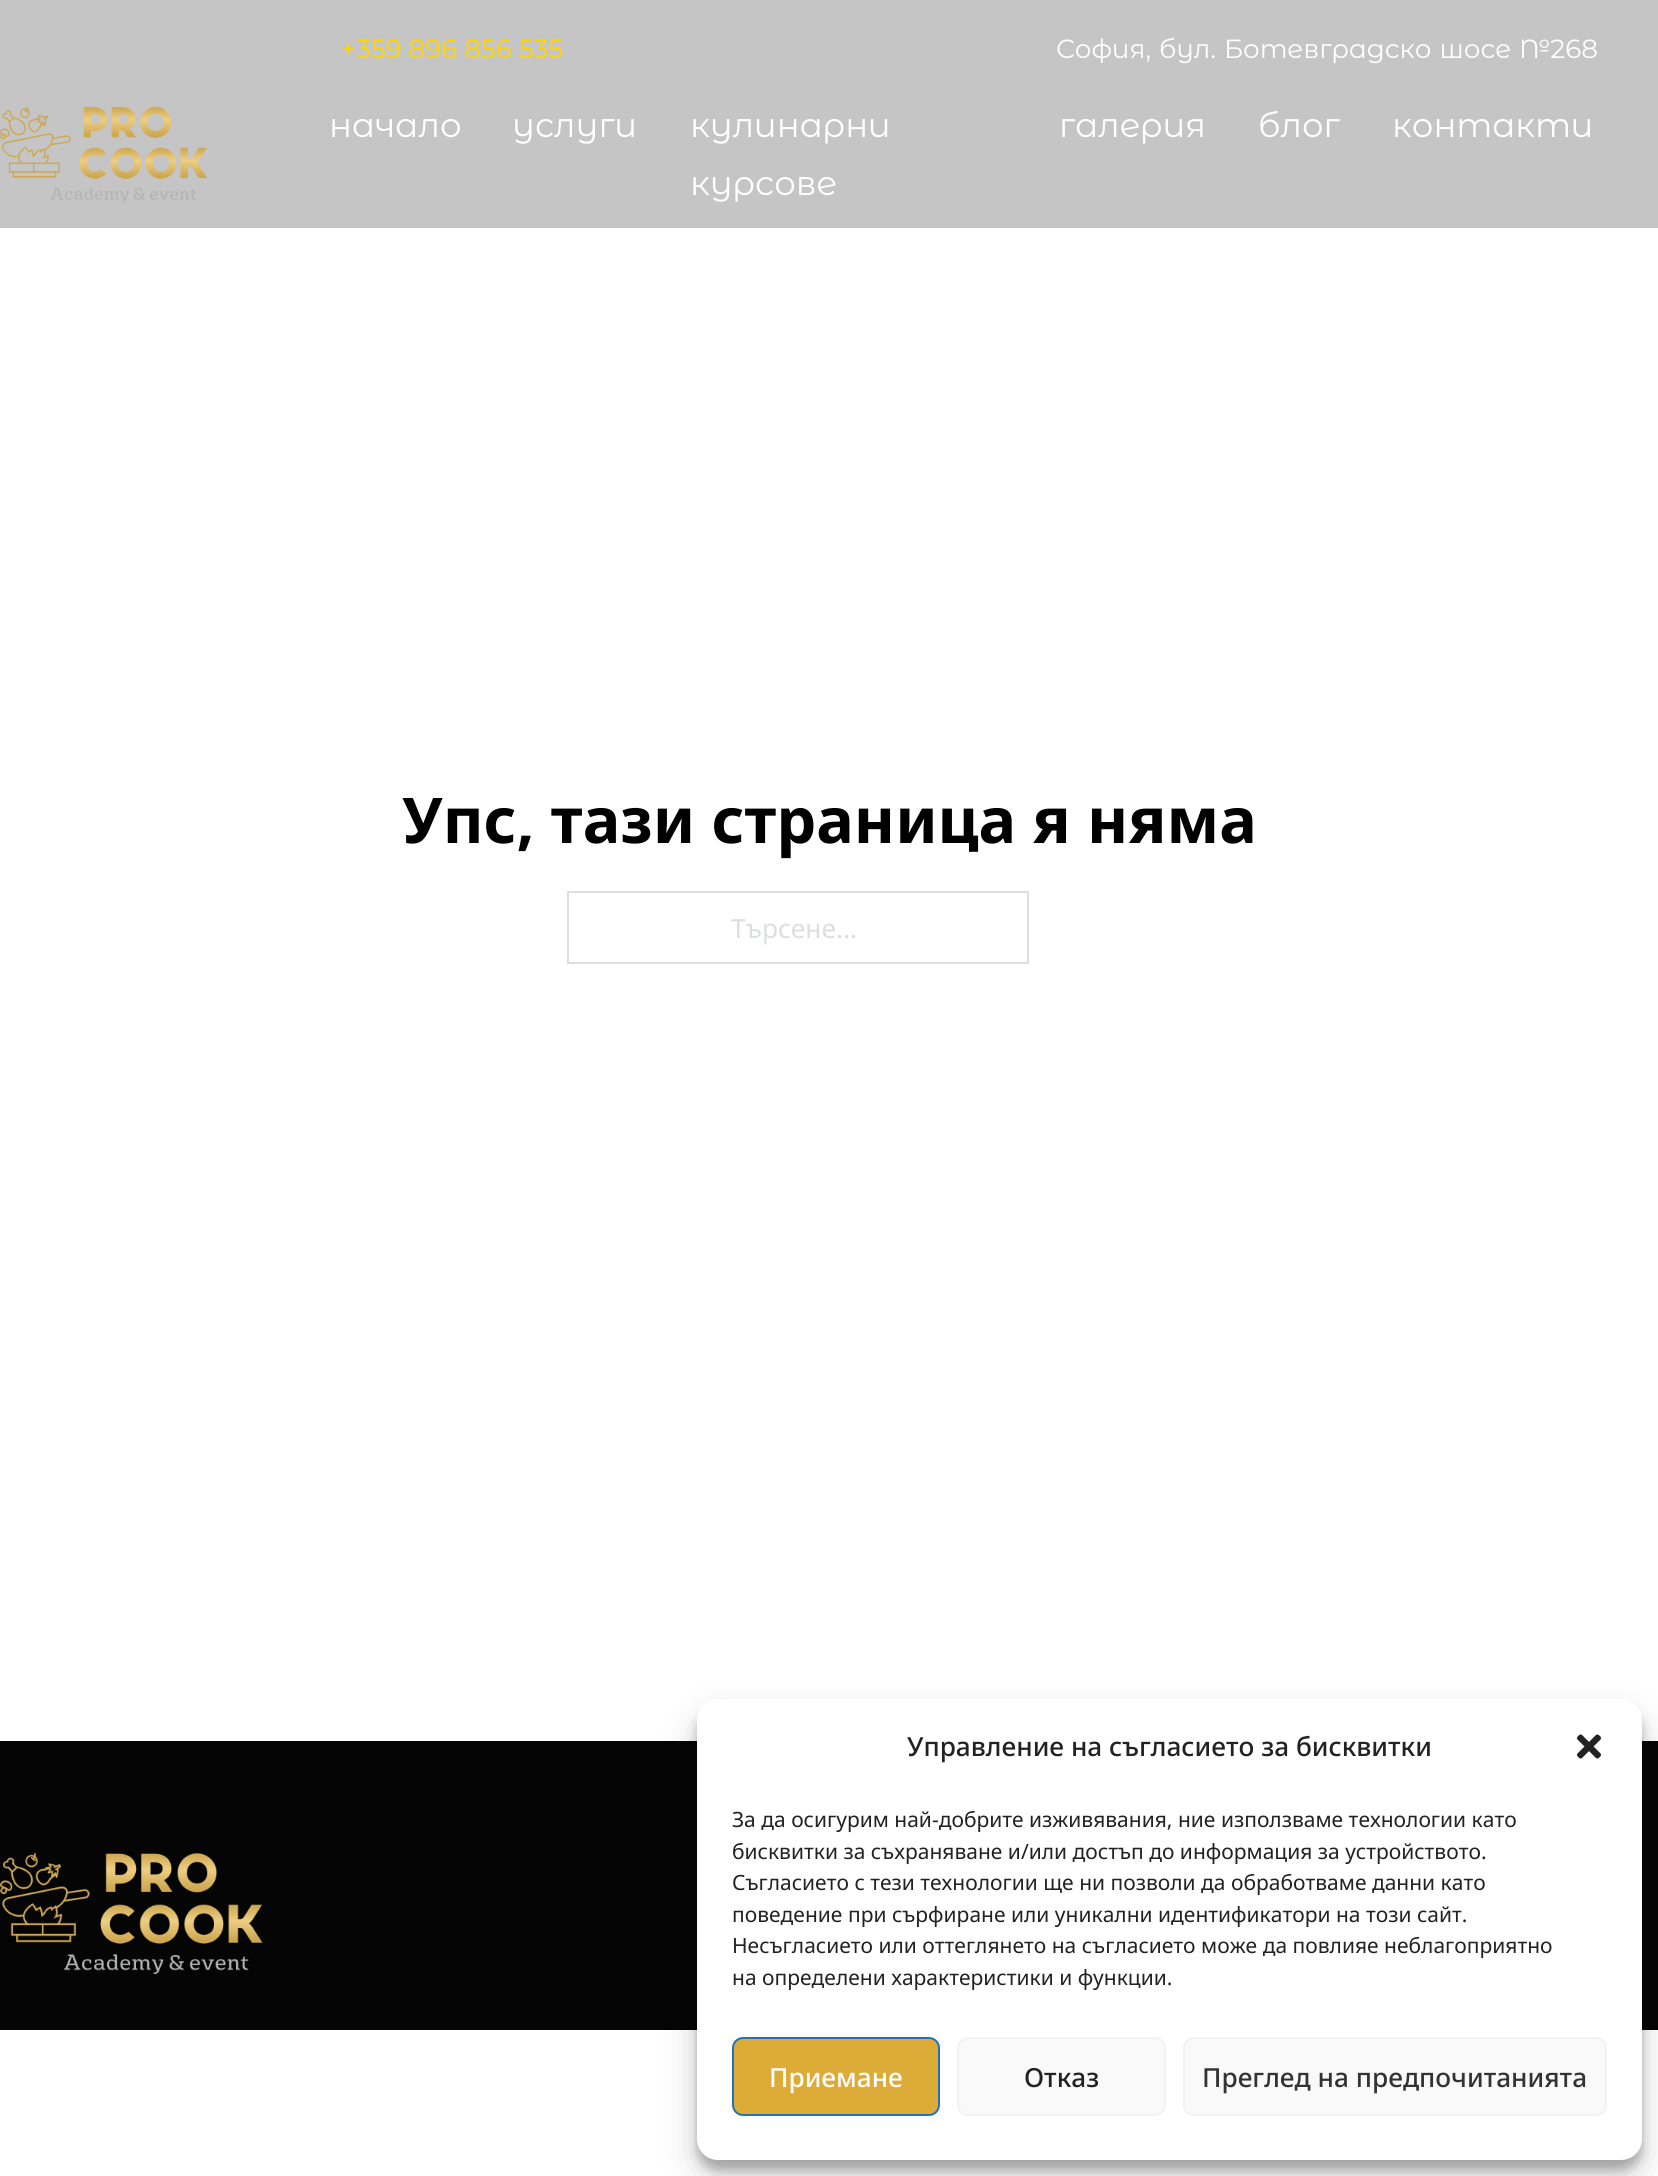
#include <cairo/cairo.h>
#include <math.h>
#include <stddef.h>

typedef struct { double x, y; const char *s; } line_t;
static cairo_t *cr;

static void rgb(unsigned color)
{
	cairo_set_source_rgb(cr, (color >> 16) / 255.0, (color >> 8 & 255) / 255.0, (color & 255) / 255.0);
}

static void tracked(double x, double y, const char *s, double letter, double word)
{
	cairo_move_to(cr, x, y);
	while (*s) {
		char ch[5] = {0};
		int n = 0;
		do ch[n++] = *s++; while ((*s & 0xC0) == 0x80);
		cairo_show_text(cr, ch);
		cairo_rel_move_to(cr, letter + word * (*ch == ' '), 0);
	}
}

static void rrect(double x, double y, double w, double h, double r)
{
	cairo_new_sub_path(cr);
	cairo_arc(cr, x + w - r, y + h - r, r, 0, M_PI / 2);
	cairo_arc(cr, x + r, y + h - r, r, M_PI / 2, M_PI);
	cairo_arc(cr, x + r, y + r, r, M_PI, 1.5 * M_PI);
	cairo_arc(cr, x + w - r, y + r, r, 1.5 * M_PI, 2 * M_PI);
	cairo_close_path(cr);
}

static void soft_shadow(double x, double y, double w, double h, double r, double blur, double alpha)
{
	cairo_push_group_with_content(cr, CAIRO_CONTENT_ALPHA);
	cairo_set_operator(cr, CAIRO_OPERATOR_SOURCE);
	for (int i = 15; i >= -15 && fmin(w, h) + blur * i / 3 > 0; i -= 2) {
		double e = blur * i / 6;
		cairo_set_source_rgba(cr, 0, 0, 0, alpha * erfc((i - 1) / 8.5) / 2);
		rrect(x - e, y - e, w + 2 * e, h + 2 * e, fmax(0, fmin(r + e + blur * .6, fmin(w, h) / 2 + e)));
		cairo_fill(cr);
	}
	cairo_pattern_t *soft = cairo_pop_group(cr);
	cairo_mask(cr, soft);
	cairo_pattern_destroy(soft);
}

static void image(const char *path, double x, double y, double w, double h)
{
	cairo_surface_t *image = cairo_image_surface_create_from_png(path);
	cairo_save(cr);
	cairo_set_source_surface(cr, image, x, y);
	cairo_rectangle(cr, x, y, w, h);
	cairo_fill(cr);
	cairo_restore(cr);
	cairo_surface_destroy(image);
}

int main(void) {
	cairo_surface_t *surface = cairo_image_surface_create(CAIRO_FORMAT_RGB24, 1658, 2176);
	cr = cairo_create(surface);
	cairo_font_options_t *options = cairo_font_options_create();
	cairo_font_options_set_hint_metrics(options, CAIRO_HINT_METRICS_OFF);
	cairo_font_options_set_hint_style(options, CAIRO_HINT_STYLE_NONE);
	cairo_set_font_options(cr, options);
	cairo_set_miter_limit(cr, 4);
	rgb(0xffffff);
	cairo_paint(cr);
	rgb(0xc5c5c5);
	cairo_rectangle(cr, 0, 0, 1658, 228);
	cairo_fill(cr);
	image("img/1.png", 0, 106, 208, 97);
	cairo_rectangle(cr, 568, 892, 460, 71);
	rgb(0xdddedf);
	cairo_stroke(cr);
	rgb(0x050505);
	cairo_rectangle(cr, 0, 1741, 1658, 289);
	cairo_fill(cr);
	rgb(0x000000);
	soft_shadow(697, 1710, 945, 460, 21, 5, 0.23);
	soft_shadow(697, 1717, 945, 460, 21, 17.5, 0.19);
	rgb(0xffffff);
	rrect(697, 1699, 945, 461, 21);
	cairo_fill(cr);
	image("img/2.png", 1577, 1734, 24, 25);
	rgb(0xddab37);
	rrect(733, 2038, 206, 77, 10);
	cairo_fill_preserve(cr);
	rgb(0x1e73be);
	cairo_stroke(cr);
	rgb(0xf9f9f9);
	rrect(958, 2038, 207, 77, 10);
	cairo_fill_preserve(cr);
	rgb(0xf2f2f2);
	cairo_stroke(cr);
	rgb(0xf9f9f9);
	rrect(1184, 2038, 422, 77, 10);
	cairo_fill_preserve(cr);
	rgb(0xf2f2f2);
	cairo_stroke(cr);
	image("img/3.png", 0, 1853, 263, 121);
	cairo_select_font_face(cr, "Montserrat Alternates", CAIRO_FONT_SLANT_NORMAL, CAIRO_FONT_WEIGHT_NORMAL);
	cairo_set_font_size(cr, 26.25);
	rgb(0xffd700);
	cairo_move_to(cr, 341, 58);
	cairo_show_text(cr, "+359 896 856 535");
	rgb(0xffffff);
	tracked(1056, 58, "София, бул. Ботевградско шосе №268", 0, 1);
	cairo_set_font_size(cr, 34);
	{
		static const line_t items[] = {
			{329, 137, "начало"},
			{512, 137, "услуги"},
			{690, 137, "кулинарни"},
			{690, 195, "курсове"},
			{1059, 137, "галерия"},
			{1258, 137, "блог"},
			{1392, 137, "контакти"},
		};
		for (size_t i = 0; i < sizeof items / sizeof *items; i++) {
			cairo_move_to(cr, items[i].x, items[i].y);
			cairo_show_text(cr, items[i].s);
		}
	}
	cairo_select_font_face(cr, "Noto Sans", CAIRO_FONT_SLANT_NORMAL, CAIRO_FONT_WEIGHT_BOLD);
	cairo_set_font_size(cr, 63);
	rgb(0x000000);
	cairo_move_to(cr, 402, 843);
	cairo_show_text(cr, "Упс, тази страница я няма");
	cairo_select_font_face(cr, "Noto Sans", CAIRO_FONT_SLANT_NORMAL, CAIRO_FONT_WEIGHT_NORMAL);
	cairo_set_font_size(cr, 26.25);
	rgb(0xdddedf);
	cairo_move_to(cr, 731, 938);
	cairo_show_text(cr, "Търсене...");
	cairo_select_font_face(cr, "Noto Sans Medium", CAIRO_FONT_SLANT_NORMAL, CAIRO_FONT_WEIGHT_NORMAL);
	rgb(0x222222);
	cairo_move_to(cr, 907, 1756);
	cairo_show_text(cr, "Управление на съгласието за бисквитки");
	cairo_select_font_face(cr, "Noto Sans", CAIRO_FONT_SLANT_NORMAL, CAIRO_FONT_WEIGHT_NORMAL);
	cairo_set_font_size(cr, 21);
	{
		static const line_t items[] = {
			{732, 1827, "За да осигурим най-добрите изживявания, ние използваме технологии като"},
			{732, 1859, "бисквитки за съхраняване и/или достъп до информация за устройството."},
			{732, 1890, "Съгласието с тези технологии ще ни позволи да обработваме данни като"},
			{732, 1922, "поведение при сърфиране или уникални идентификатори на този сайт."},
			{732, 1953, "Несъгласието или оттеглянето на съгласието може да повлияе неблагоприятно"},
			{732, 1985, "на определени характеристики и функции."},
		};
		for (size_t i = 0; i < sizeof items / sizeof *items; i++) {
			cairo_move_to(cr, items[i].x, items[i].y);
			cairo_show_text(cr, items[i].s);
		}
	}
	cairo_select_font_face(cr, "Noto Sans Medium", CAIRO_FONT_SLANT_NORMAL, CAIRO_FONT_WEIGHT_NORMAL);
	cairo_set_font_size(cr, 26.25);
	rgb(0xffffff);
	cairo_move_to(cr, 769, 2087);
	cairo_show_text(cr, "Приемане");
	rgb(0x222222);
	cairo_move_to(cr, 1024, 2087);
	cairo_show_text(cr, "Отказ");
	rgb(0x333333);
	cairo_move_to(cr, 1202, 2087);
	cairo_show_text(cr, "Преглед на предпочитанията");
	cairo_surface_write_to_png(surface, "page.png");
	cairo_font_options_destroy(options);
	cairo_destroy(cr);
	cairo_surface_destroy(surface);
	return 0;
}
